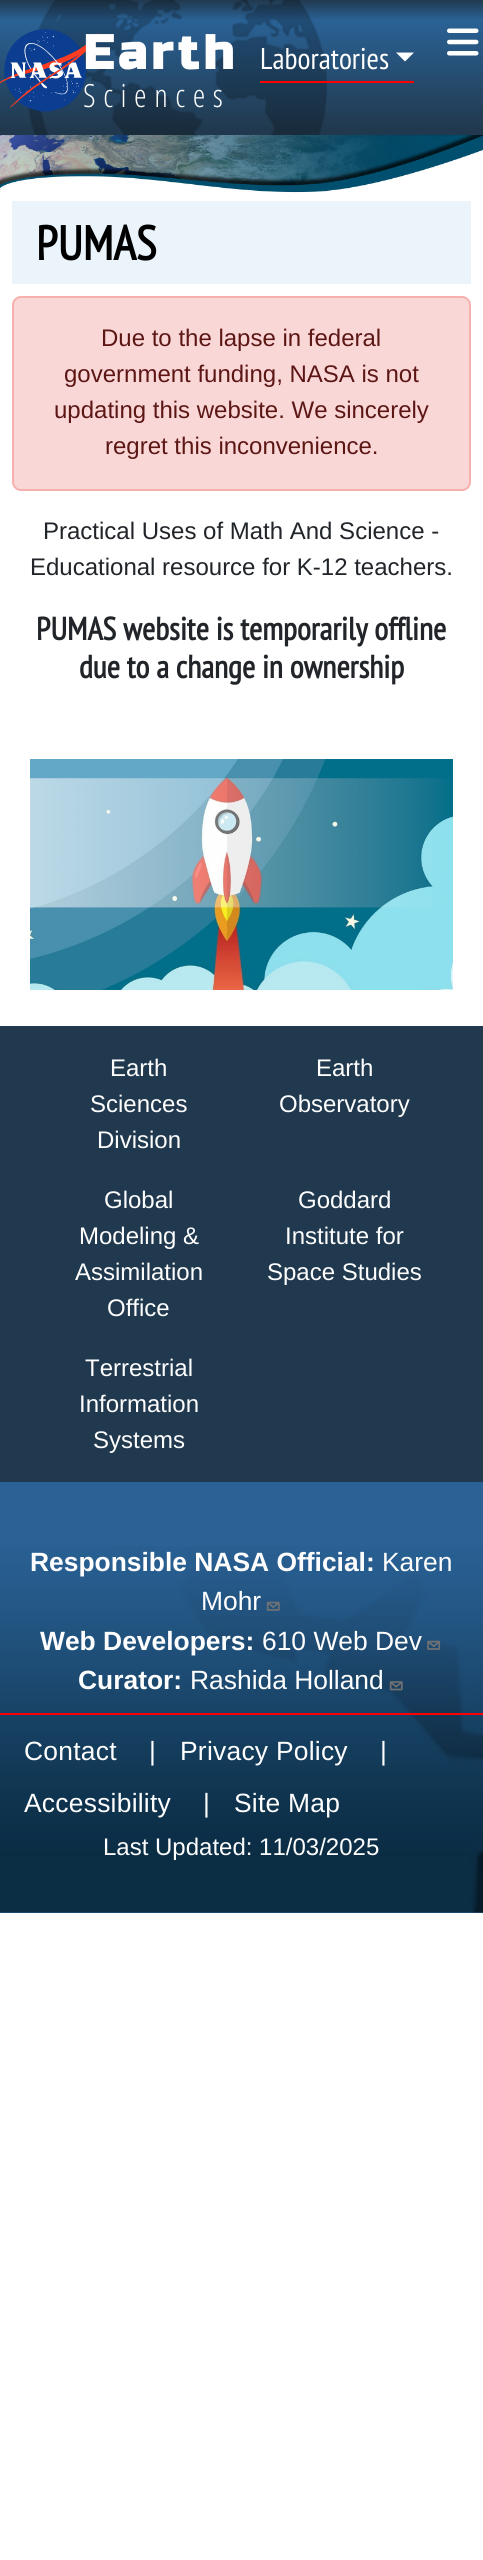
#include <cairo/cairo.h>
#include <math.h>
#include <stddef.h>

typedef struct { double x, y; const char *s; } line_t;
static cairo_t *cr;

static void rgb(unsigned color)
{
	cairo_set_source_rgb(cr, (color >> 16) / 255.0, (color >> 8 & 255) / 255.0, (color & 255) / 255.0);
}

static void tracked(double x, double y, const char *s, double letter, double word)
{
	cairo_move_to(cr, x, y);
	while (*s) {
		char ch[5] = {0};
		int n = 0;
		do ch[n++] = *s++; while ((*s & 0xC0) == 0x80);
		cairo_show_text(cr, ch);
		cairo_rel_move_to(cr, letter + word * (*ch == ' '), 0);
	}
}

static void rrect(double x, double y, double w, double h, double r)
{
	cairo_new_sub_path(cr);
	cairo_arc(cr, x + w - r, y + h - r, r, 0, M_PI / 2);
	cairo_arc(cr, x + r, y + h - r, r, M_PI / 2, M_PI);
	cairo_arc(cr, x + r, y + r, r, M_PI, 1.5 * M_PI);
	cairo_arc(cr, x + w - r, y + r, r, 1.5 * M_PI, 2 * M_PI);
	cairo_close_path(cr);
}

static void image(const char *path, double x, double y, double w, double h)
{
	cairo_surface_t *image = cairo_image_surface_create_from_png(path);
	cairo_save(cr);
	cairo_set_source_surface(cr, image, x, y);
	cairo_rectangle(cr, x, y, w, h);
	cairo_fill(cr);
	cairo_restore(cr);
	cairo_surface_destroy(image);
}

int main(void) {
	cairo_surface_t *surface = cairo_image_surface_create(CAIRO_FORMAT_RGB24, 483, 2560);
	cr = cairo_create(surface);
	cairo_font_options_t *options = cairo_font_options_create();
	cairo_font_options_set_hint_metrics(options, CAIRO_HINT_METRICS_OFF);
	cairo_font_options_set_hint_style(options, CAIRO_HINT_STYLE_NONE);
	cairo_set_font_options(cr, options);
	cairo_set_miter_limit(cr, 4);
	rgb(0xffffff);
	cairo_paint(cr);
	image("img/1.png", 0, 0, 483, 135);
	image("img/2.png", 0, 29, 99, 83);
	rgb(0xff0000);
	cairo_rectangle(cr, 260, 81, 154, 2);
	cairo_fill(cr);
	rgb(0xfefefe);
	cairo_new_path(cr);
	cairo_move_to(cr, 396, 52.5);
	cairo_line_to(cr, 414, 52.5);
	cairo_line_to(cr, 405, 61.5);
	cairo_close_path(cr);
	cairo_fill(cr);
	image("img/3.png", 447, 28, 32, 28);
	image("img/4.png", 0, 135, 483, 58);
	rgb(0xecf4fb);
	cairo_rectangle(cr, 12, 201, 459, 83);
	cairo_fill(cr);
	rgb(0xfad7d7);
	rrect(13, 297, 457, 193, 8);
	cairo_fill_preserve(cr);
	rgb(0xf5b0ae);
	cairo_stroke(cr);
	image("img/5.png", 30, 759, 423, 231);
	rgb(0x21394e);
	cairo_rectangle(cr, 0, 1026, 483, 456);
	cairo_fill(cr);
	rgb(0x2a6296);
	cairo_rectangle(cr, 0, 1482, 483, 431);
	cairo_fill(cr);
	image("img/6.png", 0, 1546, 483, 367);
	rgb(0xff0000);
	cairo_rectangle(cr, 0, 1713, 483, 2);
	cairo_fill(cr);
	image("img/7.png", 266, 1601, 14, 10);
	image("img/8.png", 427, 1640, 14, 10);
	image("img/9.png", 389, 1681, 14, 10);
	cairo_select_font_face(cr, "Russo One", CAIRO_FONT_SLANT_NORMAL, CAIRO_FONT_WEIGHT_BOLD);
	cairo_set_font_size(cr, 48);
	rgb(0xfefefe);
	tracked(83, 69, "Earth", 4.5, 0);
	cairo_select_font_face(cr, "Open Sans Condensed Light", CAIRO_FONT_SLANT_NORMAL, CAIRO_FONT_WEIGHT_NORMAL);
	cairo_set_font_size(cr, 32);
	tracked(83, 107, "Sciences", 7.5, 0);
	cairo_select_font_face(cr, "PT Sans Narrow", CAIRO_FONT_SLANT_NORMAL, CAIRO_FONT_WEIGHT_NORMAL);
	cairo_set_font_size(cr, 30);
	cairo_move_to(cr, 260, 69);
	cairo_show_text(cr, "Laboratories");
	cairo_select_font_face(cr, "PT Sans Narrow", CAIRO_FONT_SLANT_NORMAL, CAIRO_FONT_WEIGHT_BOLD);
	cairo_set_font_size(cr, 48);
	rgb(0x000000);
	cairo_move_to(cr, 36, 260);
	cairo_show_text(cr, "PUMAS");
	cairo_select_font_face(cr, "Liberation Sans", CAIRO_FONT_SLANT_NORMAL, CAIRO_FONT_WEIGHT_NORMAL);
	cairo_set_font_size(cr, 24);
	rgb(0x5c1715);
	{
		static const line_t items[] = {
			{101, 346, "Due to the lapse in federal"},
			{64, 382, "government funding, NASA is not"},
			{54, 418, "updating this website. We sincerely"},
			{105, 454, "regret this inconvenience."},
		};
		for (size_t i = 0; i < sizeof items / sizeof *items; i++) {
			cairo_move_to(cr, items[i].x, items[i].y);
			cairo_show_text(cr, items[i].s);
		}
	}
	rgb(0x212529);
	cairo_move_to(cr, 43, 539);
	cairo_show_text(cr, "Practical Uses of Math And Science -");
	cairo_move_to(cr, 30, 575);
	cairo_show_text(cr, "Educational resource for K-12 teachers.");
	cairo_select_font_face(cr, "PT Sans Narrow", CAIRO_FONT_SLANT_NORMAL, CAIRO_FONT_WEIGHT_BOLD);
	cairo_set_font_size(cr, 32);
	cairo_move_to(cr, 36, 640);
	cairo_show_text(cr, "PUMAS website is temporarily offline");
	cairo_move_to(cr, 79, 678);
	cairo_show_text(cr, "due to a change in ownership");
	cairo_select_font_face(cr, "Liberation Sans", CAIRO_FONT_SLANT_NORMAL, CAIRO_FONT_WEIGHT_NORMAL);
	cairo_set_font_size(cr, 24);
	rgb(0xfefefe);
	{
		static const line_t items[] = {
			{110, 1076, "Earth"},
			{90, 1112, "Sciences"},
			{97, 1148, "Division"},
			{316, 1076, "Earth"},
			{279, 1112, "Observatory"},
			{104, 1208, "Global"},
			{79, 1244, "Modeling &"},
			{75, 1280, "Assimilation"},
			{107, 1316, "Office"},
			{298, 1208, "Goddard"},
			{285, 1244, "Institute for"},
			{267, 1280, "Space Studies"},
			{85, 1376, "Terrestrial"},
			{79, 1412, "Information"},
			{93, 1448, "Systems"},
		};
		for (size_t i = 0; i < sizeof items / sizeof *items; i++) {
			cairo_move_to(cr, items[i].x, items[i].y);
			cairo_show_text(cr, items[i].s);
		}
	}
	cairo_select_font_face(cr, "Liberation Sans", CAIRO_FONT_SLANT_NORMAL, CAIRO_FONT_WEIGHT_BOLD);
	cairo_set_font_size(cr, 26.4);
	cairo_move_to(cr, 30, 1571);
	cairo_show_text(cr, "Responsible NASA Official:");
	cairo_select_font_face(cr, "Liberation Sans", CAIRO_FONT_SLANT_NORMAL, CAIRO_FONT_WEIGHT_NORMAL);
	cairo_move_to(cr, 382, 1571);
	cairo_show_text(cr, "Karen");
	cairo_move_to(cr, 201, 1610);
	cairo_show_text(cr, "Mohr");
	cairo_select_font_face(cr, "Liberation Sans", CAIRO_FONT_SLANT_NORMAL, CAIRO_FONT_WEIGHT_BOLD);
	cairo_move_to(cr, 40, 1650);
	cairo_show_text(cr, "Web Developers:");
	cairo_select_font_face(cr, "Liberation Sans", CAIRO_FONT_SLANT_NORMAL, CAIRO_FONT_WEIGHT_NORMAL);
	cairo_move_to(cr, 262, 1650);
	cairo_show_text(cr, "610 Web Dev");
	cairo_select_font_face(cr, "Liberation Sans", CAIRO_FONT_SLANT_NORMAL, CAIRO_FONT_WEIGHT_BOLD);
	cairo_move_to(cr, 78, 1689);
	cairo_show_text(cr, "Curator:");
	cairo_select_font_face(cr, "Liberation Sans", CAIRO_FONT_SLANT_NORMAL, CAIRO_FONT_WEIGHT_NORMAL);
	cairo_move_to(cr, 190, 1689);
	cairo_show_text(cr, "Rashida Holland");
	{
		static const line_t items[] = {
			{24, 1760, "Contact"},
			{149, 1760, "|"},
			{180, 1760, "Privacy Policy"},
			{380, 1760, "|"},
			{24, 1812, "Accessibility"},
			{203, 1812, "|"},
			{234, 1812, "Site Map"},
		};
		for (size_t i = 0; i < sizeof items / sizeof *items; i++) {
			tracked(items[i].x, items[i].y, items[i].s, 0.25, 0);
		}
	}
	cairo_set_font_size(cr, 24);
	cairo_move_to(cr, 103, 1855);
	cairo_show_text(cr, "Last Updated: 11/03/2025");
	cairo_surface_write_to_png(surface, "page.png");
	cairo_font_options_destroy(options);
	cairo_destroy(cr);
	cairo_surface_destroy(surface);
	return 0;
}
